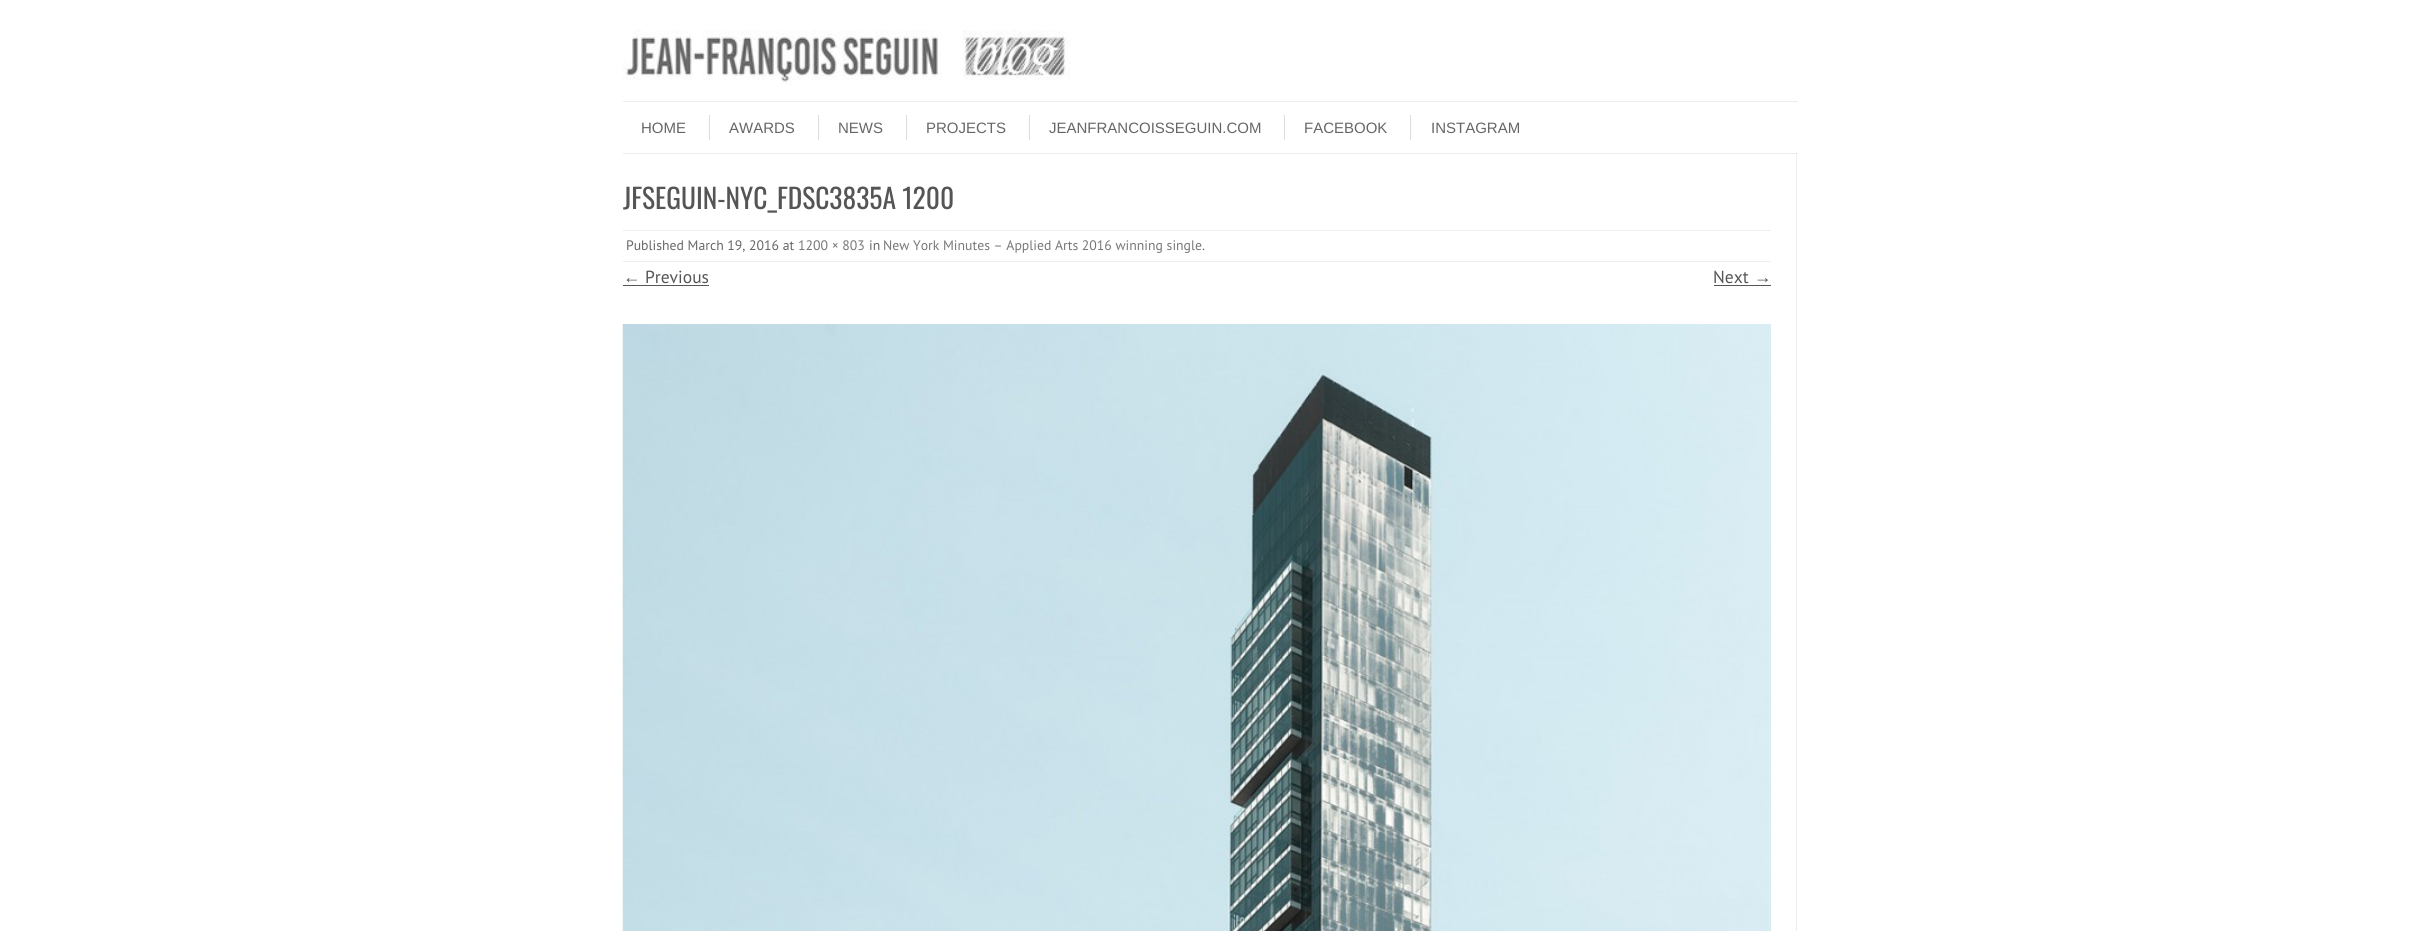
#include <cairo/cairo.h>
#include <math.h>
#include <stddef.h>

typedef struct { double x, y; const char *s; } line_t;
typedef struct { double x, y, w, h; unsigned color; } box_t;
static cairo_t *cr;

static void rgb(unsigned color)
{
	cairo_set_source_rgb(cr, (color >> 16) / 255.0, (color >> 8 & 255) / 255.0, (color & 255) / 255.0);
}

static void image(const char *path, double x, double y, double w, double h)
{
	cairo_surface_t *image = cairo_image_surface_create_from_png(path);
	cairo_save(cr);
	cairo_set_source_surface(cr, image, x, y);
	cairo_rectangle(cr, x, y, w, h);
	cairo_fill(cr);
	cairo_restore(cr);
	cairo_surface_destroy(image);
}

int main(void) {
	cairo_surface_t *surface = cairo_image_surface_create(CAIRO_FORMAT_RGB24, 2419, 931);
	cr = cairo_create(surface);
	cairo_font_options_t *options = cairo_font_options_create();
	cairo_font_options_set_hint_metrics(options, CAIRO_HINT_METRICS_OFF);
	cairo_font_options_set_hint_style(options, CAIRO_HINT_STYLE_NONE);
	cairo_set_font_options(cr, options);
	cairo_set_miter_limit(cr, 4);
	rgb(0xffffff);
	cairo_paint(cr);
	image("img/1.png", 622, 30, 448, 55);
	{
		static const box_t items[] = {
			{623, 101, 1175, 1, 0xededed},
			{623, 153, 1175, 1, 0xededed},
			{709, 115, 1, 25, 0xdddddd},
			{818, 115, 1, 25, 0xdddddd},
			{906, 115, 1, 25, 0xdddddd},
			{1029, 115, 1, 25, 0xdddddd},
			{1284, 115, 1, 25, 0xdddddd},
			{1410, 115, 1, 25, 0xdddddd},
			{1796, 154, 1, 777, 0xededed},
			{623, 230, 1148, 1, 0xeeeeee},
			{623, 261, 1148, 1, 0xeeeeee},
			{623, 285, 86, 1, 0x555555},
			{1714, 285, 57, 1, 0x555555},
		};
		for (size_t i = 0; i < sizeof items / sizeof *items; i++) {
			rgb(items[i].color);
			cairo_rectangle(cr, items[i].x, items[i].y, items[i].w, items[i].h);
			cairo_fill(cr);
		}
	}
	image("img/2.png", 622, 323, 1149, 608);
	cairo_select_font_face(cr, "Liberation Sans", CAIRO_FONT_SLANT_NORMAL, CAIRO_FONT_WEIGHT_NORMAL);
	cairo_set_font_size(cr, 15);
	rgb(0x666666);
	{
		static const line_t items[] = {
			{641, 133, "HOME"},
			{729, 133, "AWARDS"},
			{838, 133, "NEWS"},
			{926, 133, "PROJECTS"},
			{1049, 133, "JEANFRANCOISSEGUIN.COM"},
			{1304, 133, "FACEBOOK"},
			{1431, 133, "INSTAGRAM"},
		};
		for (size_t i = 0; i < sizeof items / sizeof *items; i++) {
			cairo_move_to(cr, items[i].x, items[i].y);
			cairo_show_text(cr, items[i].s);
		}
	}
	cairo_select_font_face(cr, "Oswald", CAIRO_FONT_SLANT_NORMAL, CAIRO_FONT_WEIGHT_NORMAL);
	cairo_set_font_size(cr, 27.5);
	rgb(0x555555);
	cairo_move_to(cr, 623, 209);
	cairo_show_text(cr, "JFSEGUIN-NYC_FDSC3835A 1200");
	cairo_select_font_face(cr, "PT Sans", CAIRO_FONT_SLANT_NORMAL, CAIRO_FONT_WEIGHT_NORMAL);
	cairo_set_font_size(cr, 13.75);
	rgb(0x666666);
	cairo_move_to(cr, 626, 250);
	cairo_show_text(cr, "Published March 19, 2016 at");
	rgb(0x777777);
	cairo_move_to(cr, 798, 250);
	cairo_show_text(cr, "1200 × 803");
	rgb(0x666666);
	cairo_move_to(cr, 869, 250);
	cairo_show_text(cr, "in");
	rgb(0x777777);
	cairo_move_to(cr, 883, 250);
	cairo_show_text(cr, "New York Minutes – Applied Arts 2016 winning single");
	rgb(0x666666);
	cairo_move_to(cr, 1202, 250);
	cairo_show_text(cr, ".");
	cairo_select_font_face(cr, "Liberation Sans", CAIRO_FONT_SLANT_NORMAL, CAIRO_FONT_WEIGHT_NORMAL);
	cairo_set_font_size(cr, 17.5);
	rgb(0x555555);
	cairo_move_to(cr, 623, 283);
	cairo_show_text(cr, "←");
	cairo_select_font_face(cr, "PT Sans", CAIRO_FONT_SLANT_NORMAL, CAIRO_FONT_WEIGHT_NORMAL);
	cairo_move_to(cr, 645, 283);
	cairo_show_text(cr, "Previous");
	cairo_move_to(cr, 1713, 283);
	cairo_show_text(cr, "Next");
	cairo_select_font_face(cr, "Liberation Sans", CAIRO_FONT_SLANT_NORMAL, CAIRO_FONT_WEIGHT_NORMAL);
	cairo_move_to(cr, 1754, 283);
	cairo_show_text(cr, "→");
	cairo_surface_write_to_png(surface, "page.png");
	cairo_font_options_destroy(options);
	cairo_destroy(cr);
	cairo_surface_destroy(surface);
	return 0;
}
